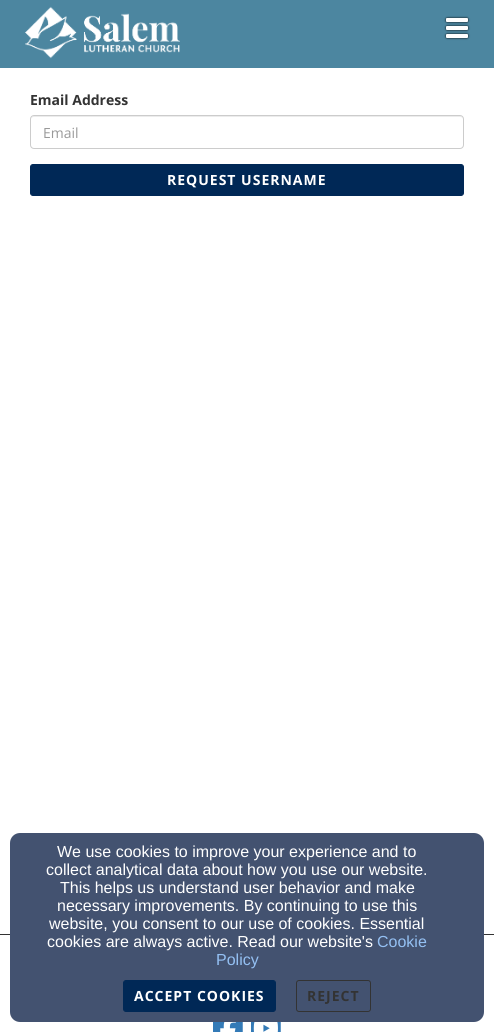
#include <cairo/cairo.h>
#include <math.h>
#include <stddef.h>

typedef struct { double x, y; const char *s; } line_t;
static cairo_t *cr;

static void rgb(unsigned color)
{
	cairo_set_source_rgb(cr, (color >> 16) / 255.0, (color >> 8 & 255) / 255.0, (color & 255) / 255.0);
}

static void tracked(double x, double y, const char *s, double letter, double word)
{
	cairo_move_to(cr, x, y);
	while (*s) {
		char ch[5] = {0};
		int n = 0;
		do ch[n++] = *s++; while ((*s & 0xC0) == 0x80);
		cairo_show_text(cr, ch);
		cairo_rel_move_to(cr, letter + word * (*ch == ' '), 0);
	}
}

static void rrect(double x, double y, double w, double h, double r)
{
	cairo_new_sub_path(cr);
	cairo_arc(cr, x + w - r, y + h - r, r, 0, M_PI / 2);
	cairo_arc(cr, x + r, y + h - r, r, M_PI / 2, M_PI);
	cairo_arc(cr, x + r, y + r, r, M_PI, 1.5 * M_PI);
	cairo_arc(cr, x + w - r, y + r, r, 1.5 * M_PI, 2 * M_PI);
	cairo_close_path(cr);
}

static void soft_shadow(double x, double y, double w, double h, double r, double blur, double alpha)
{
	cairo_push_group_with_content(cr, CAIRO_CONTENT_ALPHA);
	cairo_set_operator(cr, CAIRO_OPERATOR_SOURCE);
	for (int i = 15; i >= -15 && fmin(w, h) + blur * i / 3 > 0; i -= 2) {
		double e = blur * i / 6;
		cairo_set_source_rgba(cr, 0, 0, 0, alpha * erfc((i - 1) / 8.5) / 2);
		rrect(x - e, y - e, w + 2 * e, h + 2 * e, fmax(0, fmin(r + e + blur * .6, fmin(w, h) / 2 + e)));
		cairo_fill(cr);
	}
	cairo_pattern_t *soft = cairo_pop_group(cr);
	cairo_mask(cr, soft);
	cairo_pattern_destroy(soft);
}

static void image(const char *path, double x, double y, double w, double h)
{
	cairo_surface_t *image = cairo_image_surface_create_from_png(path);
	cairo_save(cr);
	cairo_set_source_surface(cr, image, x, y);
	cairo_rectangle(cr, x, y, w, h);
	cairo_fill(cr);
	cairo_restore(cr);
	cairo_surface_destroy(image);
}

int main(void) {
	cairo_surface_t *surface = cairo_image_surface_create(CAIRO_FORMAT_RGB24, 494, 1032);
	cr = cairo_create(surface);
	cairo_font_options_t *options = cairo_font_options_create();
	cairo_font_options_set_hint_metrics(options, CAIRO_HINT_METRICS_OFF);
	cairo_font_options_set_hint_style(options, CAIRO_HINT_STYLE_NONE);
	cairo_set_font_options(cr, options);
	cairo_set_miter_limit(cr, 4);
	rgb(0xffffff);
	cairo_paint(cr);
	rgb(0x4c86a0);
	cairo_rectangle(cr, 0, 0, 494, 68);
	cairo_fill(cr);
	image("img/1.png", 25, 6, 155, 53);
	rgb(0x000000);
	soft_shadow(446, 18, 22, 4, 1, 1, 1);
	rgb(0xffffff);
	rrect(446, 18, 22, 4, 1);
	cairo_fill(cr);
	rgb(0x000000);
	soft_shadow(446, 26, 22, 4, 1, 1, 1);
	rgb(0xffffff);
	rrect(446, 26, 22, 4, 1);
	cairo_fill(cr);
	rgb(0x000000);
	soft_shadow(446, 34, 22, 4, 1, 1, 1);
	rgb(0xffffff);
	rrect(446, 34, 22, 4, 1);
	cairo_fill(cr);
	rgb(0xececec);
	cairo_new_path(cr);
	cairo_move_to(cr, 34, 117);
	cairo_line_to(cr, 460, 117);
	cairo_curve_to(cr, 462, 117, 463, 118, 463, 120);
	cairo_curve_to(cr, 463, 118, 462, 116, 460, 116);
	cairo_line_to(cr, 34, 116);
	cairo_curve_to(cr, 32, 116, 31, 118, 31, 120);
	cairo_curve_to(cr, 31, 118, 32, 117, 34, 117);
	cairo_close_path(cr);
	cairo_fill(cr);
	rrect(30.5, 115.5, 433, 33, 3.5);
	rgb(0xcccccc);
	cairo_set_line_width(cr, 1);
	cairo_stroke(cr);
	rgb(0x002856);
	rrect(30.5, 164.5, 433, 31, 2.5);
	cairo_fill_preserve(cr);
	cairo_stroke(cr);
	rgb(0x333333);
	cairo_rectangle(cr, 0, 934, 494, 1);
	cairo_fill(cr);
	rgb(0x435270);
	rrect(10, 833, 474, 189, 10);
	cairo_fill(cr);
	rgb(0x002856);
	rrect(123.5, 980.5, 152, 31, 2.5);
	cairo_fill_preserve(cr);
	cairo_stroke(cr);
	rrect(296.5, 980.5, 74, 31, 2.5);
	rgb(0x333333);
	cairo_stroke(cr);
	image("img/2.png", 213, 1022, 30, 10);
	image("img/3.png", 251, 1022, 30, 10);
	cairo_select_font_face(cr, "Open Sans", CAIRO_FONT_SLANT_NORMAL, CAIRO_FONT_WEIGHT_BOLD);
	cairo_set_font_size(cr, 14);
	cairo_move_to(cr, 30, 105);
	cairo_show_text(cr, "Email Address");
	cairo_select_font_face(cr, "Open Sans", CAIRO_FONT_SLANT_NORMAL, CAIRO_FONT_WEIGHT_NORMAL);
	rgb(0x999999);
	cairo_move_to(cr, 43, 138);
	cairo_show_text(cr, "Email");
	cairo_select_font_face(cr, "Open Sans", CAIRO_FONT_SLANT_NORMAL, CAIRO_FONT_WEIGHT_BOLD);
	rgb(0xffffff);
	tracked(167, 185, "REQUEST USERNAME", 1, 0);
	cairo_select_font_face(cr, "Liberation Sans", CAIRO_FONT_SLANT_NORMAL, CAIRO_FONT_WEIGHT_NORMAL);
	cairo_set_font_size(cr, 16);
	{
		static const line_t items[] = {
			{57, 857, "We use cookies to improve your experience and to"},
			{46, 875, "collect analytical data about how you use our website."},
			{60, 893, "This helps us understand user behavior and make"},
			{57, 911, "necessary improvements. By continuing to use this"},
			{49, 929, "website, you consent to our use of cookies. Essential"},
			{47, 947, "cookies are always active. Read our website's"},
		};
		for (size_t i = 0; i < sizeof items / sizeof *items; i++) {
			cairo_move_to(cr, items[i].x, items[i].y);
			cairo_show_text(cr, items[i].s);
		}
	}
	rgb(0x94c0f3);
	cairo_move_to(cr, 377, 947);
	cairo_show_text(cr, "Cookie");
	cairo_move_to(cr, 216, 965);
	cairo_show_text(cr, "Policy");
	cairo_select_font_face(cr, "Open Sans", CAIRO_FONT_SLANT_NORMAL, CAIRO_FONT_WEIGHT_BOLD);
	cairo_set_font_size(cr, 14);
	rgb(0xffffff);
	tracked(134, 1001, "ACCEPT COOKIES", 1, 0);
	rgb(0x333333);
	tracked(307, 1001, "REJECT", 1, 0);
	cairo_surface_write_to_png(surface, "page.png");
	cairo_font_options_destroy(options);
	cairo_destroy(cr);
	cairo_surface_destroy(surface);
	return 0;
}
